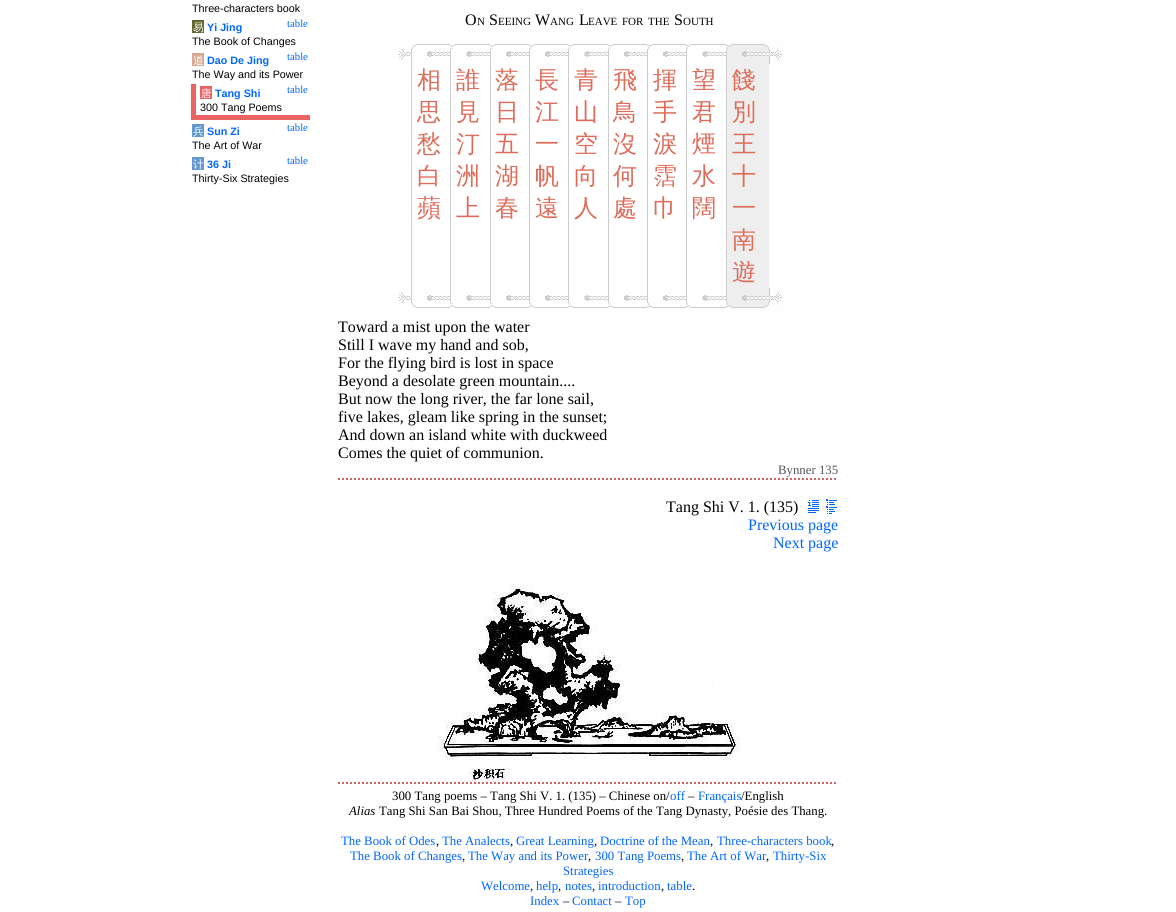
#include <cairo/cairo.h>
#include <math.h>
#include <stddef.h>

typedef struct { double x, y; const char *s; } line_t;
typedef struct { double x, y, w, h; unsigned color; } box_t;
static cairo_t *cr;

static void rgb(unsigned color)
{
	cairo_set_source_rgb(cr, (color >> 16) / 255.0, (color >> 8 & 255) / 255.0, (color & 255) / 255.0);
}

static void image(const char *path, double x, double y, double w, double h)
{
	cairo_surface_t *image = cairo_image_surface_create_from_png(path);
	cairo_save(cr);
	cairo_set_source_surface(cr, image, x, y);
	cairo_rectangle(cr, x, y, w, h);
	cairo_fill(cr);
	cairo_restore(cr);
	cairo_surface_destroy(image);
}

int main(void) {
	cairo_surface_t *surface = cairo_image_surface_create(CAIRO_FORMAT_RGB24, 1176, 912);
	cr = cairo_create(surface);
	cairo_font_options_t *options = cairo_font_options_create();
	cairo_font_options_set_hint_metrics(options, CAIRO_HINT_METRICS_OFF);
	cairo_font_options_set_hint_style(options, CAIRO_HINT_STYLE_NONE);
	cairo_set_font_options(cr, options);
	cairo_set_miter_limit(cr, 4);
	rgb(0xffffff);
	cairo_paint(cr);
	{
		static const box_t items[] = {
			{192, 20, 12, 13, 0x666633},
			{192, 53, 12, 13, 0xd5a994},
			{191, 115, 119, 5, 0xeb6363},
			{191, 84, 5, 36, 0xeb6363},
			{200, 86, 12, 13, 0xeb6363},
			{192, 124, 12, 13, 0x6599cd},
			{192, 157, 12, 13, 0x6599cd},
		};
		for (size_t i = 0; i < sizeof items / sizeof *items; i++) {
			rgb(items[i].color);
			cairo_rectangle(cr, items[i].x, items[i].y, items[i].w, items[i].h);
			cairo_fill(cr);
		}
	}
	image("img/1.png", 398, 49, 13, 11);
	image("img/2.png", 416, 44, 34, 13);
	image("img/3.png", 411, 44, 5, 20);
	image("img/4.png", 455, 44, 35, 13);
	image("img/5.png", 450, 44, 5, 20);
	image("img/2.png", 495, 44, 34, 13);
	image("img/5.png", 490, 44, 5, 20);
	image("img/2.png", 534, 44, 34, 13);
	image("img/5.png", 529, 44, 5, 20);
	image("img/4.png", 573, 44, 35, 13);
	image("img/5.png", 568, 44, 5, 20);
	image("img/2.png", 613, 44, 34, 13);
	image("img/5.png", 608, 44, 5, 20);
	image("img/2.png", 652, 44, 34, 13);
	image("img/5.png", 647, 44, 5, 20);
	image("img/4.png", 691, 44, 35, 13);
	image("img/5.png", 686, 44, 5, 20);
	rgb(0xeeeeee);
	cairo_rectangle(cr, 727, 45, 38, 262);
	cairo_fill(cr);
	image("img/6.png", 726, 39, 39, 18);
	image("img/7.png", 726, 44, 5, 20);
	cairo_rectangle(cr, 765, 46, 4, 260);
	cairo_fill(cr);
	image("img/8.png", 765, 39, 19, 25);
	{
		static const box_t items[] = {
			{411, 64, 1, 224, 0xcccccc},
			{450, 64, 1, 224, 0xcccccc},
			{490, 64, 1, 224, 0xcccccc},
			{529, 64, 1, 224, 0xcccccc},
			{568, 64, 1, 224, 0xcccccc},
			{608, 64, 1, 224, 0xcccccc},
			{647, 64, 1, 224, 0xcccccc},
			{686, 64, 1, 224, 0xcccccc},
			{726, 64, 1, 224, 0xcccccc},
		};
		for (size_t i = 0; i < sizeof items / sizeof *items; i++) {
			rgb(items[i].color);
			cairo_rectangle(cr, items[i].x, items[i].y, items[i].w, items[i].h);
			cairo_fill(cr);
		}
	}
	image("img/9.png", 398, 292, 13, 11);
	image("img/10.png", 416, 295, 34, 13);
	image("img/11.png", 411, 288, 5, 20);
	image("img/12.png", 455, 295, 35, 13);
	image("img/13.png", 450, 288, 5, 20);
	image("img/10.png", 495, 295, 34, 13);
	image("img/13.png", 490, 288, 5, 20);
	image("img/10.png", 534, 295, 34, 13);
	image("img/13.png", 529, 288, 5, 20);
	image("img/12.png", 573, 295, 35, 13);
	image("img/13.png", 568, 288, 5, 20);
	image("img/10.png", 613, 295, 34, 13);
	image("img/13.png", 608, 288, 5, 20);
	image("img/10.png", 652, 295, 34, 13);
	image("img/13.png", 647, 288, 5, 20);
	image("img/12.png", 691, 295, 35, 13);
	image("img/13.png", 686, 288, 5, 20);
	image("img/14.png", 726, 295, 39, 18);
	image("img/15.png", 726, 288, 5, 20);
	image("img/16.png", 765, 288, 19, 25);
	cairo_new_path(cr);
	cairo_move_to(cr, 338, 479);
	cairo_line_to(cr, 838, 479);
	rgb(0xcc6666);
	cairo_set_dash(cr, (double[]){2, 2}, 2, 0);
	cairo_stroke(cr);
	image("img/17.png", 808, 500, 11, 13);
	image("img/18.png", 826, 499, 11, 15);
	image("img/19.png", 437, 584, 304, 198);
	cairo_new_path(cr);
	cairo_move_to(cr, 338, 783);
	cairo_line_to(cr, 838, 783);
	cairo_stroke(cr);
	cairo_select_font_face(cr, "Liberation Sans", CAIRO_FONT_SLANT_NORMAL, CAIRO_FONT_WEIGHT_NORMAL);
	cairo_set_font_size(cr, 10.75);
	rgb(0x000000);
	cairo_move_to(cr, 192, 12);
	cairo_show_text(cr, "Three-characters book");
	cairo_select_font_face(cr, "WenQuanYi Zen Hei Medium", CAIRO_FONT_SLANT_NORMAL, CAIRO_FONT_WEIGHT_NORMAL);
	rgb(0xffffff);
	cairo_move_to(cr, 193, 31);
	cairo_show_text(cr, "易");
	cairo_select_font_face(cr, "Liberation Sans", CAIRO_FONT_SLANT_NORMAL, CAIRO_FONT_WEIGHT_BOLD);
	rgb(0x0066ff);
	cairo_move_to(cr, 207, 31);
	cairo_show_text(cr, "Yi Jing");
	cairo_select_font_face(cr, "Liberation Sans", CAIRO_FONT_SLANT_NORMAL, CAIRO_FONT_WEIGHT_NORMAL);
	rgb(0x000000);
	cairo_move_to(cr, 192, 45);
	cairo_show_text(cr, "The Book of Changes");
	cairo_select_font_face(cr, "Liberation Serif", CAIRO_FONT_SLANT_NORMAL, CAIRO_FONT_WEIGHT_NORMAL);
	rgb(0x0066ff);
	cairo_move_to(cr, 287, 27);
	cairo_show_text(cr, "table");
	cairo_move_to(cr, 287, 60);
	cairo_show_text(cr, "table");
	cairo_select_font_face(cr, "WenQuanYi Zen Hei Medium", CAIRO_FONT_SLANT_NORMAL, CAIRO_FONT_WEIGHT_NORMAL);
	rgb(0xffffff);
	cairo_move_to(cr, 193, 64);
	cairo_show_text(cr, "道");
	cairo_select_font_face(cr, "Liberation Sans", CAIRO_FONT_SLANT_NORMAL, CAIRO_FONT_WEIGHT_BOLD);
	rgb(0x0066ff);
	cairo_move_to(cr, 207, 64);
	cairo_show_text(cr, "Dao De Jing");
	cairo_select_font_face(cr, "Liberation Sans", CAIRO_FONT_SLANT_NORMAL, CAIRO_FONT_WEIGHT_NORMAL);
	rgb(0x000000);
	cairo_move_to(cr, 192, 78);
	cairo_show_text(cr, "The Way and its Power");
	cairo_select_font_face(cr, "WenQuanYi Zen Hei Medium", CAIRO_FONT_SLANT_NORMAL, CAIRO_FONT_WEIGHT_NORMAL);
	rgb(0xffffff);
	cairo_move_to(cr, 201, 97);
	cairo_show_text(cr, "唐");
	cairo_select_font_face(cr, "Liberation Sans", CAIRO_FONT_SLANT_NORMAL, CAIRO_FONT_WEIGHT_BOLD);
	rgb(0x0066ff);
	cairo_move_to(cr, 215, 97);
	cairo_show_text(cr, "Tang Shi");
	cairo_select_font_face(cr, "Liberation Sans", CAIRO_FONT_SLANT_NORMAL, CAIRO_FONT_WEIGHT_NORMAL);
	rgb(0x000000);
	cairo_move_to(cr, 200, 111);
	cairo_show_text(cr, "300 Tang Poems");
	cairo_select_font_face(cr, "Liberation Serif", CAIRO_FONT_SLANT_NORMAL, CAIRO_FONT_WEIGHT_NORMAL);
	rgb(0x0066ff);
	cairo_move_to(cr, 287, 93);
	cairo_show_text(cr, "table");
	cairo_select_font_face(cr, "WenQuanYi Zen Hei Medium", CAIRO_FONT_SLANT_NORMAL, CAIRO_FONT_WEIGHT_NORMAL);
	rgb(0xffffff);
	cairo_move_to(cr, 193, 135);
	cairo_show_text(cr, "兵");
	cairo_select_font_face(cr, "Liberation Sans", CAIRO_FONT_SLANT_NORMAL, CAIRO_FONT_WEIGHT_BOLD);
	rgb(0x0066ff);
	cairo_move_to(cr, 207, 135);
	cairo_show_text(cr, "Sun Zi");
	cairo_select_font_face(cr, "Liberation Sans", CAIRO_FONT_SLANT_NORMAL, CAIRO_FONT_WEIGHT_NORMAL);
	rgb(0x000000);
	cairo_move_to(cr, 192, 149);
	cairo_show_text(cr, "The Art of War");
	cairo_select_font_face(cr, "Liberation Serif", CAIRO_FONT_SLANT_NORMAL, CAIRO_FONT_WEIGHT_NORMAL);
	rgb(0x0066ff);
	cairo_move_to(cr, 287, 131);
	cairo_show_text(cr, "table");
	cairo_select_font_face(cr, "WenQuanYi Zen Hei Medium", CAIRO_FONT_SLANT_NORMAL, CAIRO_FONT_WEIGHT_NORMAL);
	rgb(0xffffff);
	cairo_move_to(cr, 193, 168);
	cairo_show_text(cr, "计");
	cairo_select_font_face(cr, "Liberation Sans", CAIRO_FONT_SLANT_NORMAL, CAIRO_FONT_WEIGHT_BOLD);
	rgb(0x0066ff);
	cairo_move_to(cr, 207, 168);
	cairo_show_text(cr, "36 Ji");
	cairo_select_font_face(cr, "Liberation Sans", CAIRO_FONT_SLANT_NORMAL, CAIRO_FONT_WEIGHT_NORMAL);
	rgb(0x000000);
	cairo_move_to(cr, 192, 182);
	cairo_show_text(cr, "Thirty-Six Strategies");
	cairo_select_font_face(cr, "Liberation Serif", CAIRO_FONT_SLANT_NORMAL, CAIRO_FONT_WEIGHT_NORMAL);
	rgb(0x0066ff);
	cairo_move_to(cr, 287, 164);
	cairo_show_text(cr, "table");
	cairo_set_font_size(cr, 16);
	rgb(0x000000);
	cairo_move_to(cr, 465, 25);
	cairo_show_text(cr, "O");
	cairo_set_font_size(cr, 11);
	cairo_move_to(cr, 477, 25);
	cairo_show_text(cr, "N");
	cairo_set_font_size(cr, 16);
	cairo_move_to(cr, 489, 25);
	cairo_show_text(cr, "S");
	cairo_set_font_size(cr, 11);
	cairo_move_to(cr, 498, 25);
	cairo_show_text(cr, "EEING");
	cairo_set_font_size(cr, 16);
	cairo_move_to(cr, 535, 25);
	cairo_show_text(cr, "W");
	cairo_set_font_size(cr, 11);
	cairo_move_to(cr, 550, 25);
	cairo_show_text(cr, "ANG");
	cairo_set_font_size(cr, 16);
	cairo_move_to(cr, 579, 25);
	cairo_show_text(cr, "L");
	cairo_set_font_size(cr, 11);
	{
		static const line_t items[] = {
			{588, 25, "EAVE"},
			{622, 25, "FOR"},
			{648, 25, "THE"},
		};
		for (size_t i = 0; i < sizeof items / sizeof *items; i++) {
			cairo_move_to(cr, items[i].x, items[i].y);
			cairo_show_text(cr, items[i].s);
		}
	}
	cairo_set_font_size(cr, 16);
	cairo_move_to(cr, 674, 25);
	cairo_show_text(cr, "S");
	cairo_set_font_size(cr, 11);
	cairo_move_to(cr, 683, 25);
	cairo_show_text(cr, "OUTH");
	cairo_select_font_face(cr, "WenQuanYi Zen Hei Medium", CAIRO_FONT_SLANT_NORMAL, CAIRO_FONT_WEIGHT_NORMAL);
	cairo_set_font_size(cr, 24);
	rgb(0xde6c5a);
	{
		static const line_t items[] = {
			{417, 88, "相"},
			{417, 120, "思"},
			{417, 152, "愁"},
			{417, 184, "白"},
			{417, 216, "蘋"},
			{456, 88, "誰"},
			{456, 120, "見"},
			{456, 152, "汀"},
			{456, 184, "洲"},
			{456, 216, "上"},
			{495, 88, "落"},
			{495, 120, "日"},
			{495, 152, "五"},
			{495, 184, "湖"},
			{495, 216, "春"},
			{535, 88, "長"},
			{535, 120, "江"},
			{535, 152, "一"},
			{535, 184, "帆"},
			{535, 216, "遠"},
			{574, 88, "青"},
			{574, 120, "山"},
			{574, 152, "空"},
			{574, 184, "向"},
			{574, 216, "人"},
			{613, 88, "飛"},
			{613, 120, "鳥"},
			{613, 152, "沒"},
			{613, 184, "何"},
			{613, 216, "處"},
			{653, 88, "揮"},
			{653, 120, "手"},
			{653, 152, "淚"},
			{653, 184, "霑"},
			{653, 216, "巾"},
			{692, 88, "望"},
			{692, 120, "君"},
			{692, 152, "煙"},
			{692, 184, "水"},
			{692, 216, "闊"},
			{732, 88, "餞"},
			{732, 120, "別"},
			{732, 152, "王"},
			{732, 184, "十"},
			{732, 216, "一"},
			{732, 248, "南"},
			{732, 280, "遊"},
		};
		for (size_t i = 0; i < sizeof items / sizeof *items; i++) {
			cairo_move_to(cr, items[i].x, items[i].y);
			cairo_show_text(cr, items[i].s);
		}
	}
	cairo_select_font_face(cr, "Liberation Serif", CAIRO_FONT_SLANT_NORMAL, CAIRO_FONT_WEIGHT_NORMAL);
	cairo_set_font_size(cr, 16);
	rgb(0x000000);
	{
		static const line_t items[] = {
			{338, 332, "Toward a mist upon the water"},
			{338, 350, "Still I wave my hand and sob,"},
			{338, 368, "For the flying bird is lost in space"},
			{338, 386, "Beyond a desolate green mountain...."},
			{338, 404, "But now the long river, the far lone sail,"},
			{338, 422, "five lakes, gleam like spring in the sunset;"},
			{338, 440, "And down an island white with duckweed"},
			{338, 458, "Comes the quiet of communion."},
		};
		for (size_t i = 0; i < sizeof items / sizeof *items; i++) {
			cairo_move_to(cr, items[i].x, items[i].y);
			cairo_show_text(cr, items[i].s);
		}
	}
	cairo_set_font_size(cr, 12.8);
	rgb(0x555555);
	cairo_move_to(cr, 778, 474);
	cairo_show_text(cr, "Bynner 135");
	cairo_set_font_size(cr, 16);
	rgb(0x000000);
	cairo_move_to(cr, 666, 512);
	cairo_show_text(cr, "Tang Shi V. 1. (135)");
	rgb(0x0066ff);
	cairo_move_to(cr, 748, 530);
	cairo_show_text(cr, "Previous page");
	cairo_move_to(cr, 773, 548);
	cairo_show_text(cr, "Next page");
	cairo_set_font_size(cr, 12.8);
	rgb(0x000000);
	cairo_move_to(cr, 392, 800);
	cairo_show_text(cr, "300 Tang poems – Tang Shi V. 1. (135) – Chinese on/");
	rgb(0x0066ff);
	cairo_move_to(cr, 670, 800);
	cairo_show_text(cr, "off");
	rgb(0x000000);
	cairo_move_to(cr, 688, 800);
	cairo_show_text(cr, "–");
	rgb(0x0066ff);
	cairo_move_to(cr, 698, 800);
	cairo_show_text(cr, "Français");
	rgb(0x000000);
	cairo_move_to(cr, 741, 800);
	cairo_show_text(cr, "/English");
	cairo_select_font_face(cr, "Liberation Serif", CAIRO_FONT_SLANT_ITALIC, CAIRO_FONT_WEIGHT_NORMAL);
	cairo_move_to(cr, 349, 815);
	cairo_show_text(cr, "Alias");
	cairo_select_font_face(cr, "Liberation Serif", CAIRO_FONT_SLANT_NORMAL, CAIRO_FONT_WEIGHT_NORMAL);
	cairo_move_to(cr, 379, 815);
	cairo_show_text(cr, "Tang Shi San Bai Shou, Three Hundred Poems of the Tang Dynasty, Poésie des Thang.");
	rgb(0x0066ff);
	cairo_move_to(cr, 341, 845);
	cairo_show_text(cr, "The Book of Odes");
	rgb(0x000000);
	cairo_move_to(cr, 436, 845);
	cairo_show_text(cr, ",");
	rgb(0x0066ff);
	cairo_move_to(cr, 442, 845);
	cairo_show_text(cr, "The Analects");
	rgb(0x000000);
	cairo_move_to(cr, 510, 845);
	cairo_show_text(cr, ",");
	rgb(0x0066ff);
	cairo_move_to(cr, 516, 845);
	cairo_show_text(cr, "Great Learning");
	rgb(0x000000);
	cairo_move_to(cr, 594, 845);
	cairo_show_text(cr, ",");
	rgb(0x0066ff);
	cairo_move_to(cr, 600, 845);
	cairo_show_text(cr, "Doctrine of the Mean");
	rgb(0x000000);
	cairo_move_to(cr, 710, 845);
	cairo_show_text(cr, ",");
	rgb(0x0066ff);
	cairo_move_to(cr, 717, 845);
	cairo_show_text(cr, "Three-characters book");
	rgb(0x000000);
	cairo_move_to(cr, 831, 845);
	cairo_show_text(cr, ",");
	rgb(0x0066ff);
	cairo_move_to(cr, 350, 860);
	cairo_show_text(cr, "The Book of Changes");
	rgb(0x000000);
	cairo_move_to(cr, 462, 860);
	cairo_show_text(cr, ",");
	rgb(0x0066ff);
	cairo_move_to(cr, 468, 860);
	cairo_show_text(cr, "The Way and its Power");
	rgb(0x000000);
	cairo_move_to(cr, 588, 860);
	cairo_show_text(cr, ",");
	rgb(0x0066ff);
	cairo_move_to(cr, 595, 860);
	cairo_show_text(cr, "300 Tang Poems");
	rgb(0x000000);
	cairo_move_to(cr, 681, 860);
	cairo_show_text(cr, ",");
	rgb(0x0066ff);
	cairo_move_to(cr, 687, 860);
	cairo_show_text(cr, "The Art of War");
	rgb(0x000000);
	cairo_move_to(cr, 766, 860);
	cairo_show_text(cr, ",");
	rgb(0x0066ff);
	{
		static const line_t items[] = {
			{773, 860, "Thirty-Six"},
			{563, 875, "Strategies"},
			{481, 890, "Welcome"},
		};
		for (size_t i = 0; i < sizeof items / sizeof *items; i++) {
			cairo_move_to(cr, items[i].x, items[i].y);
			cairo_show_text(cr, items[i].s);
		}
	}
	rgb(0x000000);
	cairo_move_to(cr, 530, 890);
	cairo_show_text(cr, ",");
	rgb(0x0066ff);
	cairo_move_to(cr, 536, 890);
	cairo_show_text(cr, "help");
	rgb(0x000000);
	cairo_move_to(cr, 558, 890);
	cairo_show_text(cr, ",");
	rgb(0x0066ff);
	cairo_move_to(cr, 565, 890);
	cairo_show_text(cr, "notes");
	rgb(0x000000);
	cairo_move_to(cr, 592, 890);
	cairo_show_text(cr, ",");
	rgb(0x0066ff);
	cairo_move_to(cr, 598, 890);
	cairo_show_text(cr, "introduction");
	rgb(0x000000);
	cairo_move_to(cr, 661, 890);
	cairo_show_text(cr, ",");
	rgb(0x0066ff);
	cairo_move_to(cr, 667, 890);
	cairo_show_text(cr, "table");
	rgb(0x000000);
	cairo_move_to(cr, 692, 890);
	cairo_show_text(cr, ".");
	rgb(0x0066ff);
	cairo_move_to(cr, 530, 905);
	cairo_show_text(cr, "Index");
	rgb(0x000000);
	cairo_move_to(cr, 563, 905);
	cairo_show_text(cr, "–");
	rgb(0x0066ff);
	cairo_move_to(cr, 572, 905);
	cairo_show_text(cr, "Contact");
	rgb(0x000000);
	cairo_move_to(cr, 615, 905);
	cairo_show_text(cr, "–");
	rgb(0x0066ff);
	cairo_move_to(cr, 625, 905);
	cairo_show_text(cr, "Top");
	cairo_surface_write_to_png(surface, "page.png");
	cairo_font_options_destroy(options);
	cairo_destroy(cr);
	cairo_surface_destroy(surface);
	return 0;
}
